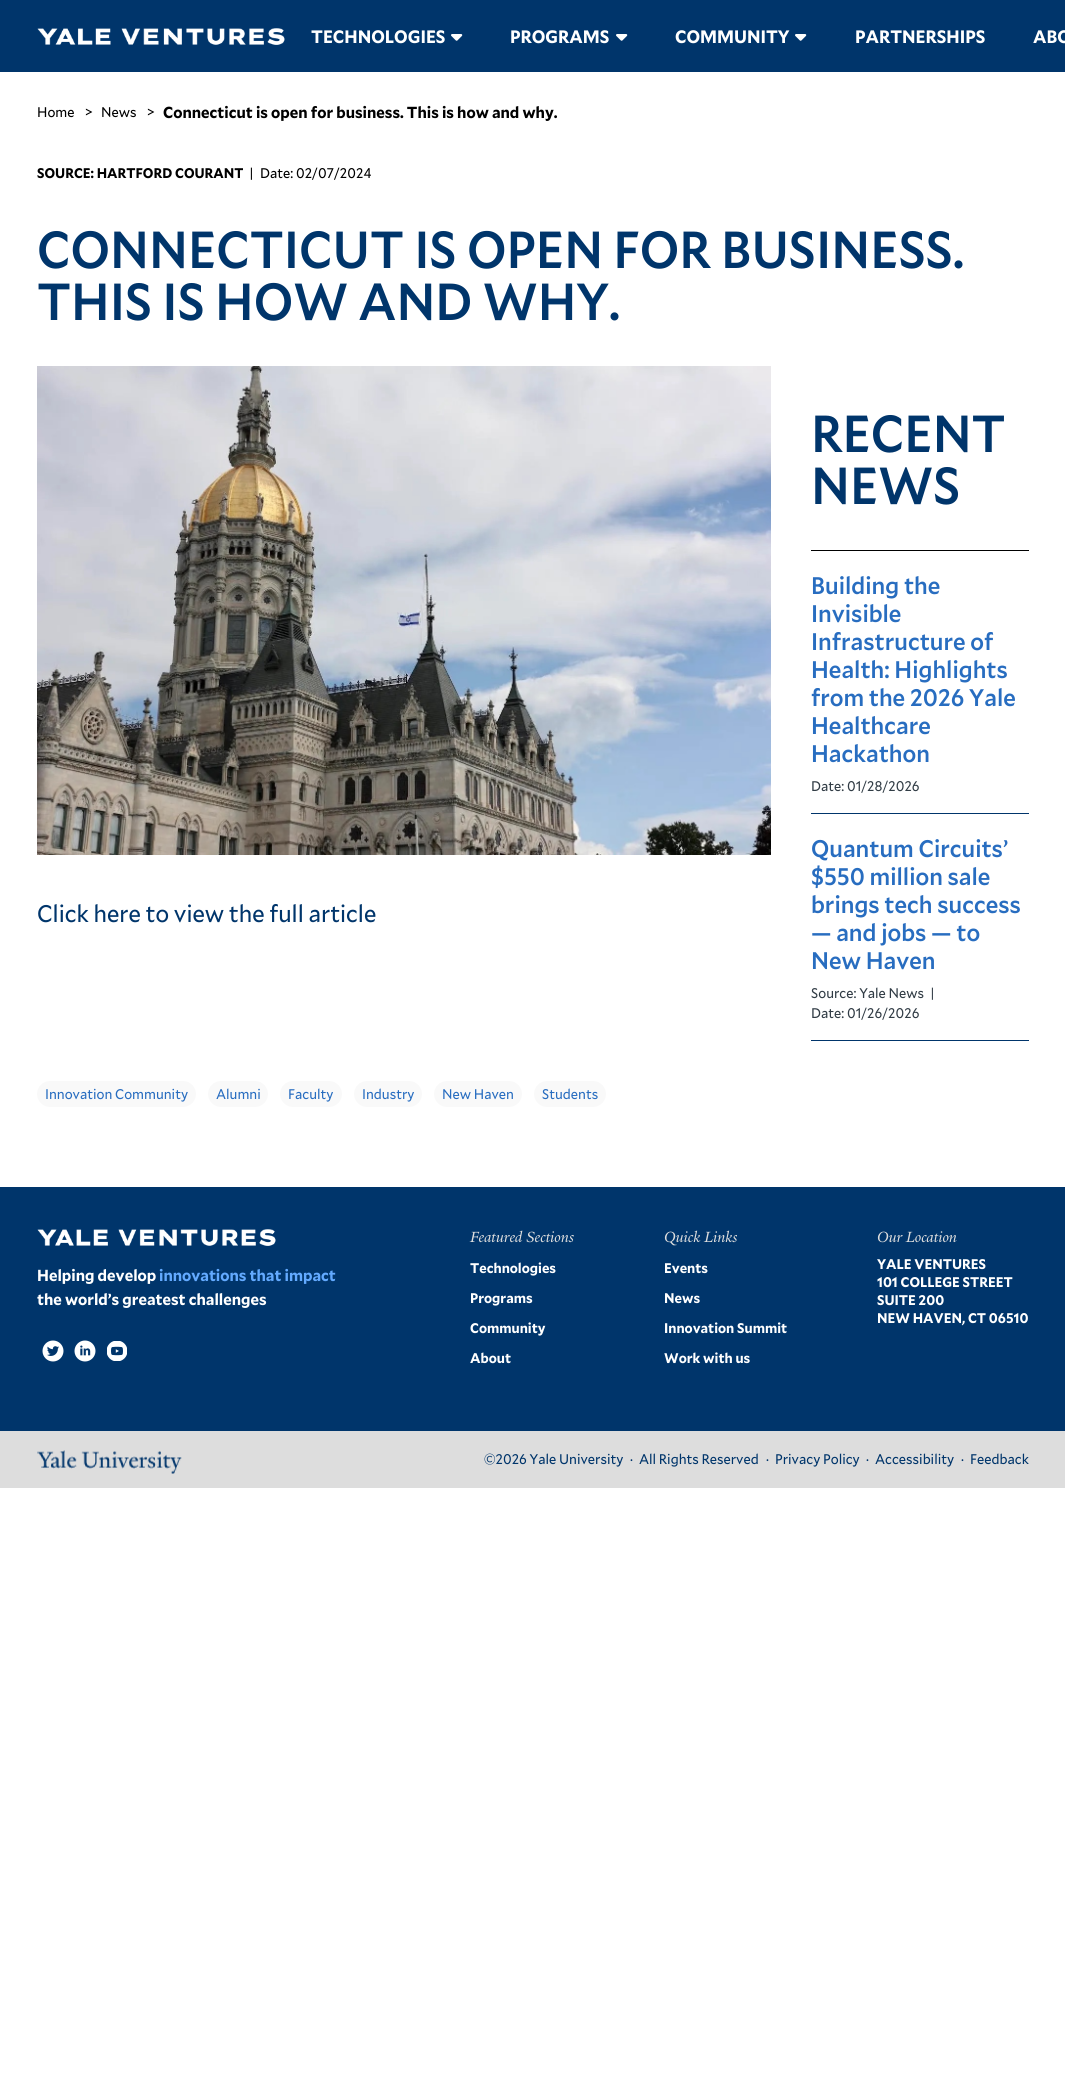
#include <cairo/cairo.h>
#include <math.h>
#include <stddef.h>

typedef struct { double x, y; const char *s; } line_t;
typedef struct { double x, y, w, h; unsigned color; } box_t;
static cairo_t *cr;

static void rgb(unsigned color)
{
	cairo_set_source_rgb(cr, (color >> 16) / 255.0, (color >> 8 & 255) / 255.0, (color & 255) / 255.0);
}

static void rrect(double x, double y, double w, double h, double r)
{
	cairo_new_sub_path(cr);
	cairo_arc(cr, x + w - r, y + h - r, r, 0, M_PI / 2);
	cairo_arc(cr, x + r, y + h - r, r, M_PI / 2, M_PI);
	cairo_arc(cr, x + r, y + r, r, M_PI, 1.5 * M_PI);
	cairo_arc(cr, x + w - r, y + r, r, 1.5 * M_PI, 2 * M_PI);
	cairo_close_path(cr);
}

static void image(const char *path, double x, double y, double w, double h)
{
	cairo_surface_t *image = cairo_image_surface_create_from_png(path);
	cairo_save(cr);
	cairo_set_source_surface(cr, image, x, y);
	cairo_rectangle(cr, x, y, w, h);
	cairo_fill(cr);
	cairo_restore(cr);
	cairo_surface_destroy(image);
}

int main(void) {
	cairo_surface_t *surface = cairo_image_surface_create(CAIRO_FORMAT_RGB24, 1065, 2098);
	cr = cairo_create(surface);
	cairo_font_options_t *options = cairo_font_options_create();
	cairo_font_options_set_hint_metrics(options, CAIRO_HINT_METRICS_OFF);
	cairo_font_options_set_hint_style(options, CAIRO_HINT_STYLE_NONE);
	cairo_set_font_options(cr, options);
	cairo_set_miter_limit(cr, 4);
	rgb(0xffffff);
	cairo_paint(cr);
	rgb(0x00356b);
	cairo_rectangle(cr, 0, 0, 1065, 72);
	cairo_fill(cr);
	image("img/1.png", 37, 28, 248, 17);
	image("img/2.png", 451, 34, 12, 7);
	image("img/2.png", 616, 34, 12, 7);
	image("img/2.png", 795, 34, 12, 7);
	image("img/3.png", 37, 366, 734, 489);
	{
		static const box_t items[] = {
			{811, 550, 218, 1, 0x000000},
			{811, 813, 218, 1, 0x00356b},
			{811, 1040, 218, 1, 0x00356b},
		};
		for (size_t i = 0; i < sizeof items / sizeof *items; i++) {
			rgb(items[i].color);
			cairo_rectangle(cr, items[i].x, items[i].y, items[i].w, items[i].h);
			cairo_fill(cr);
		}
	}
	rgb(0xf9f9f9);
	rrect(37, 1081, 159, 26, 13);
	cairo_fill(cr);
	rrect(208, 1081, 60, 26, 13);
	cairo_fill(cr);
	rrect(280, 1081, 62, 26, 13);
	cairo_fill(cr);
	rrect(354, 1081, 68, 26, 13);
	cairo_fill(cr);
	rrect(434, 1081, 88, 26, 13);
	cairo_fill(cr);
	rrect(534, 1081, 72, 26, 13);
	cairo_fill(cr);
	rgb(0x00356b);
	cairo_rectangle(cr, 0, 1187, 1065, 244);
	cairo_fill(cr);
	image("img/4.png", 37, 1229, 239, 17);
	image("img/5.png", 42, 1340, 22, 22);
	image("img/6.png", 74, 1340, 22, 22);
	image("img/7.png", 107, 1341, 20, 20);
	rgb(0xdddddd);
	cairo_rectangle(cr, 0, 1431, 1065, 57);
	cairo_fill(cr);
	image("img/8.png", 37, 1450, 145, 24);
	cairo_select_font_face(cr, "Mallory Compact", CAIRO_FONT_SLANT_NORMAL, CAIRO_FONT_WEIGHT_BOLD);
	cairo_set_font_size(cr, 18);
	rgb(0xffffff);
	{
		static const line_t items[] = {
			{311, 43, "TECHNOLOGIES"},
			{510, 43, "PROGRAMS"},
			{675, 43, "COMMUNITY"},
			{855, 43, "PARTNERSHIPS"},
			{1033, 43, "ABO"},
		};
		for (size_t i = 0; i < sizeof items / sizeof *items; i++) {
			cairo_move_to(cr, items[i].x, items[i].y);
			cairo_show_text(cr, items[i].s);
		}
	}
	cairo_select_font_face(cr, "Mallory Compact", CAIRO_FONT_SLANT_NORMAL, CAIRO_FONT_WEIGHT_NORMAL);
	cairo_set_font_size(cr, 14);
	rgb(0x000000);
	{
		static const line_t items[] = {
			{37, 117, "Home"},
			{85, 117, ">"},
			{101, 117, "News"},
			{147, 117, ">"},
		};
		for (size_t i = 0; i < sizeof items / sizeof *items; i++) {
			cairo_move_to(cr, items[i].x, items[i].y);
			cairo_show_text(cr, items[i].s);
		}
	}
	cairo_select_font_face(cr, "Mallory Compact", CAIRO_FONT_SLANT_NORMAL, CAIRO_FONT_WEIGHT_BOLD);
	cairo_set_font_size(cr, 16);
	cairo_move_to(cr, 163, 118);
	cairo_show_text(cr, "Connecticut is open for business. This is how and why.");
	cairo_set_font_size(cr, 14);
	cairo_move_to(cr, 37, 178);
	cairo_show_text(cr, "SOURCE: HARTFORD COURANT");
	cairo_select_font_face(cr, "Mallory Compact", CAIRO_FONT_SLANT_NORMAL, CAIRO_FONT_WEIGHT_NORMAL);
	cairo_move_to(cr, 249, 178);
	cairo_show_text(cr, "|");
	cairo_move_to(cr, 260, 178);
	cairo_show_text(cr, "Date: 02/07/2024");
	cairo_select_font_face(cr, "Mallory Compact Medium", CAIRO_FONT_SLANT_NORMAL, CAIRO_FONT_WEIGHT_NORMAL);
	cairo_set_font_size(cr, 52);
	rgb(0x00356b);
	cairo_move_to(cr, 37, 268);
	cairo_show_text(cr, "CONNECTICUT IS OPEN FOR BUSINESS.");
	cairo_move_to(cr, 37, 320);
	cairo_show_text(cr, "THIS IS HOW AND WHY.");
	cairo_select_font_face(cr, "Mallory Compact", CAIRO_FONT_SLANT_NORMAL, CAIRO_FONT_WEIGHT_NORMAL);
	cairo_set_font_size(cr, 24);
	cairo_move_to(cr, 37, 922);
	cairo_show_text(cr, "Click here to view the full article");
	cairo_select_font_face(cr, "Mallory Compact Medium", CAIRO_FONT_SLANT_NORMAL, CAIRO_FONT_WEIGHT_NORMAL);
	cairo_set_font_size(cr, 52);
	cairo_move_to(cr, 811, 452);
	cairo_show_text(cr, "RECENT");
	cairo_move_to(cr, 811, 504);
	cairo_show_text(cr, "NEWS");
	cairo_set_font_size(cr, 24);
	rgb(0x286dc0);
	{
		static const line_t items[] = {
			{811, 594, "Building the"},
			{811, 622, "Invisible"},
			{811, 650, "Infrastructure of"},
			{811, 678, "Health: Highlights"},
			{811, 706, "from the 2026 Yale"},
			{811, 734, "Healthcare"},
			{811, 762, "Hackathon"},
		};
		for (size_t i = 0; i < sizeof items / sizeof *items; i++) {
			cairo_move_to(cr, items[i].x, items[i].y);
			cairo_show_text(cr, items[i].s);
		}
	}
	cairo_select_font_face(cr, "Mallory Compact", CAIRO_FONT_SLANT_NORMAL, CAIRO_FONT_WEIGHT_NORMAL);
	cairo_set_font_size(cr, 14);
	rgb(0x313c45);
	cairo_move_to(cr, 811, 791);
	cairo_show_text(cr, "Date: 01/28/2026");
	cairo_select_font_face(cr, "Mallory Compact Medium", CAIRO_FONT_SLANT_NORMAL, CAIRO_FONT_WEIGHT_NORMAL);
	cairo_set_font_size(cr, 24);
	rgb(0x286dc0);
	{
		static const line_t items[] = {
			{811, 857, "Quantum Circuits’"},
			{811, 885, "$550 million sale"},
			{811, 913, "brings tech success"},
			{811, 941, "— and jobs — to"},
			{811, 969, "New Haven"},
		};
		for (size_t i = 0; i < sizeof items / sizeof *items; i++) {
			cairo_move_to(cr, items[i].x, items[i].y);
			cairo_show_text(cr, items[i].s);
		}
	}
	cairo_select_font_face(cr, "Mallory Compact", CAIRO_FONT_SLANT_NORMAL, CAIRO_FONT_WEIGHT_NORMAL);
	cairo_set_font_size(cr, 14);
	rgb(0x313c45);
	{
		static const line_t items[] = {
			{811, 998, "Source: Yale News"},
			{930, 998, "|"},
			{811, 1018, "Date: 01/26/2026"},
		};
		for (size_t i = 0; i < sizeof items / sizeof *items; i++) {
			cairo_move_to(cr, items[i].x, items[i].y);
			cairo_show_text(cr, items[i].s);
		}
	}
	rgb(0x286dc0);
	{
		static const line_t items[] = {
			{45, 1099, "Innovation Community"},
			{216, 1099, "Alumni"},
			{288, 1099, "Faculty"},
			{362, 1099, "Industry"},
			{442, 1099, "New Haven"},
			{542, 1099, "Students"},
		};
		for (size_t i = 0; i < sizeof items / sizeof *items; i++) {
			cairo_move_to(cr, items[i].x, items[i].y);
			cairo_show_text(cr, items[i].s);
		}
	}
	cairo_select_font_face(cr, "Mallory Compact", CAIRO_FONT_SLANT_NORMAL, CAIRO_FONT_WEIGHT_BOLD);
	cairo_set_font_size(cr, 16);
	rgb(0xffffff);
	cairo_move_to(cr, 37, 1281);
	cairo_show_text(cr, "Helping develop");
	rgb(0x63aaff);
	cairo_move_to(cr, 159, 1281);
	cairo_show_text(cr, "innovations that impact");
	rgb(0xffffff);
	cairo_move_to(cr, 37, 1305);
	cairo_show_text(cr, "the world’s greatest challenges");
	cairo_select_font_face(cr, "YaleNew", CAIRO_FONT_SLANT_ITALIC, CAIRO_FONT_WEIGHT_NORMAL);
	rgb(0xdddddd);
	cairo_move_to(cr, 470, 1242);
	cairo_show_text(cr, "Featured Sections");
	cairo_select_font_face(cr, "Mallory Compact", CAIRO_FONT_SLANT_NORMAL, CAIRO_FONT_WEIGHT_BOLD);
	cairo_set_font_size(cr, 14);
	rgb(0xffffff);
	{
		static const line_t items[] = {
			{470, 1273, "Technologies"},
			{470, 1303, "Programs"},
			{470, 1333, "Community"},
			{470, 1363, "About"},
		};
		for (size_t i = 0; i < sizeof items / sizeof *items; i++) {
			cairo_move_to(cr, items[i].x, items[i].y);
			cairo_show_text(cr, items[i].s);
		}
	}
	cairo_select_font_face(cr, "YaleNew", CAIRO_FONT_SLANT_ITALIC, CAIRO_FONT_WEIGHT_NORMAL);
	cairo_set_font_size(cr, 16);
	rgb(0xdddddd);
	cairo_move_to(cr, 664, 1242);
	cairo_show_text(cr, "Quick Links");
	cairo_select_font_face(cr, "Mallory Compact", CAIRO_FONT_SLANT_NORMAL, CAIRO_FONT_WEIGHT_BOLD);
	cairo_set_font_size(cr, 14);
	rgb(0xffffff);
	{
		static const line_t items[] = {
			{664, 1273, "Events"},
			{664, 1303, "News"},
			{664, 1333, "Innovation Summit"},
			{664, 1363, "Work with us"},
		};
		for (size_t i = 0; i < sizeof items / sizeof *items; i++) {
			cairo_move_to(cr, items[i].x, items[i].y);
			cairo_show_text(cr, items[i].s);
		}
	}
	cairo_select_font_face(cr, "YaleNew", CAIRO_FONT_SLANT_ITALIC, CAIRO_FONT_WEIGHT_NORMAL);
	cairo_set_font_size(cr, 16);
	rgb(0xdddddd);
	cairo_move_to(cr, 877, 1242);
	cairo_show_text(cr, "Our Location");
	cairo_select_font_face(cr, "Mallory Compact", CAIRO_FONT_SLANT_NORMAL, CAIRO_FONT_WEIGHT_BOLD);
	cairo_set_font_size(cr, 14);
	rgb(0xffffff);
	{
		static const line_t items[] = {
			{877, 1269, "YALE VENTURES"},
			{877, 1287, "101 COLLEGE STREET"},
			{877, 1305, "SUITE 200"},
			{877, 1323, "NEW HAVEN, CT 06510"},
		};
		for (size_t i = 0; i < sizeof items / sizeof *items; i++) {
			cairo_move_to(cr, items[i].x, items[i].y);
			cairo_show_text(cr, items[i].s);
		}
	}
	cairo_select_font_face(cr, "Mallory Compact", CAIRO_FONT_SLANT_NORMAL, CAIRO_FONT_WEIGHT_NORMAL);
	rgb(0x00356b);
	{
		static const line_t items[] = {
			{484, 1464, "©2026 Yale University"},
			{630, 1464, "·"},
			{639, 1464, "All Rights Reserved"},
			{766, 1464, "·"},
			{775, 1464, "Privacy Policy"},
			{866, 1464, "·"},
			{875, 1464, "Accessibility"},
			{961, 1464, "·"},
			{970, 1464, "Feedback"},
		};
		for (size_t i = 0; i < sizeof items / sizeof *items; i++) {
			cairo_move_to(cr, items[i].x, items[i].y);
			cairo_show_text(cr, items[i].s);
		}
	}
	cairo_surface_write_to_png(surface, "page.png");
	cairo_font_options_destroy(options);
	cairo_destroy(cr);
	cairo_surface_destroy(surface);
	return 0;
}
